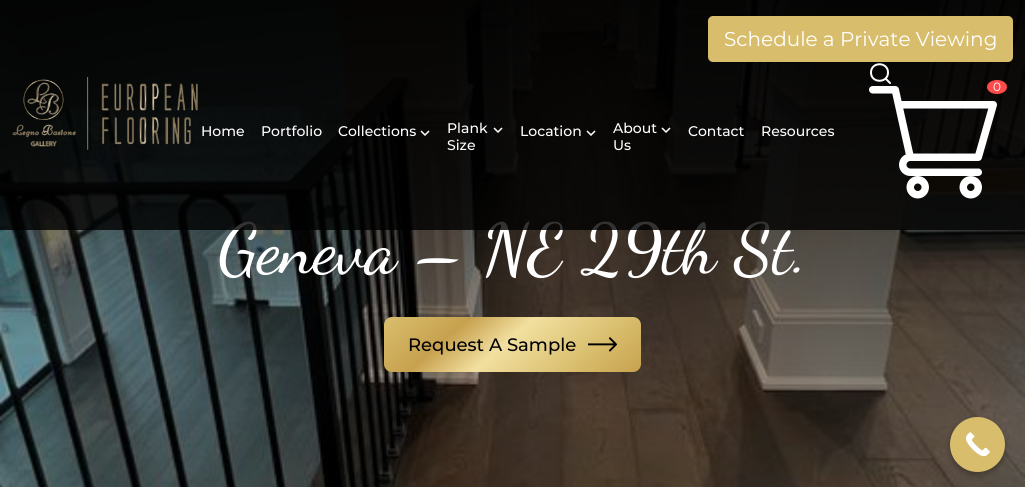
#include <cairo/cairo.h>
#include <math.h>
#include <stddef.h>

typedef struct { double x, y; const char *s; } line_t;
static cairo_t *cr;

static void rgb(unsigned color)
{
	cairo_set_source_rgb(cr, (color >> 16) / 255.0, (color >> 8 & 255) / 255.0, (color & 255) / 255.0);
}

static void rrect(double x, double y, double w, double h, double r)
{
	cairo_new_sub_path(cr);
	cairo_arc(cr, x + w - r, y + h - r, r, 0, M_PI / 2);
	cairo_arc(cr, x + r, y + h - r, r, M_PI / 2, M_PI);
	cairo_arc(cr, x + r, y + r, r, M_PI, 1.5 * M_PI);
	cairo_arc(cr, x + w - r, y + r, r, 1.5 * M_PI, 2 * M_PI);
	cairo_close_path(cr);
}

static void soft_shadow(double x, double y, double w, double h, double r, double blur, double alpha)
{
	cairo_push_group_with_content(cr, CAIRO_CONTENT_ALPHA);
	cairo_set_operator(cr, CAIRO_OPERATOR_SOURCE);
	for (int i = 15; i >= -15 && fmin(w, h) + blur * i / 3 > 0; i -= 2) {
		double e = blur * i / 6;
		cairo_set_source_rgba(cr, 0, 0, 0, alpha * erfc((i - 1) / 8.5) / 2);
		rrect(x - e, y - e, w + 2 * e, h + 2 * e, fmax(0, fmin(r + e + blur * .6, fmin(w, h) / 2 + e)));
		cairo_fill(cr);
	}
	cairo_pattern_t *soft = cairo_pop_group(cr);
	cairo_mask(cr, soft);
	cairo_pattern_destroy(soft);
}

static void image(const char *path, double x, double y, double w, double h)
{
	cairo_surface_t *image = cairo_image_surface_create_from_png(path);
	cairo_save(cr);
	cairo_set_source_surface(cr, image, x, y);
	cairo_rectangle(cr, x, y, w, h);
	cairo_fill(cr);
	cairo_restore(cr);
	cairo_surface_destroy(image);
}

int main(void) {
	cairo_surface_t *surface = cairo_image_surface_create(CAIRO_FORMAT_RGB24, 1025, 487);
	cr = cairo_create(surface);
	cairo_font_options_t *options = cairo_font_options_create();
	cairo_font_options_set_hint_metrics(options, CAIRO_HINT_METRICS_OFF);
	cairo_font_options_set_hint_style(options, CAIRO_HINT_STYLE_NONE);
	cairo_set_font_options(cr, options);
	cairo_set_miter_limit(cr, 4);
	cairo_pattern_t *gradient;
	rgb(0xffffff);
	cairo_paint(cr);
	image("img/3.png", 0, 0, 1025, 487);
	gradient = cairo_pattern_create_linear(444, 265, 582, 425);
	cairo_pattern_add_color_stop_rgba(gradient, 0.02, 0.847, 0.741, 0.424, 1);
	cairo_pattern_add_color_stop_rgba(gradient, 0.27, 0.78, 0.631, 0.306, 1);
	cairo_pattern_add_color_stop_rgba(gradient, 0.47, 0.949, 0.878, 0.627, 1);
	cairo_pattern_add_color_stop_rgba(gradient, 0.77, 0.847, 0.741, 0.424, 1);
	cairo_pattern_add_color_stop_rgba(gradient, 1, 0.78, 0.631, 0.306, 1);
	cairo_set_source(cr, gradient);
	cairo_pattern_destroy(gradient);
	rrect(384, 317, 257, 55, 8);
	cairo_fill(cr);
	image("img/4.png", 588, 337, 29, 15);
	rgb(0x000000);
	soft_shadow(950, 420, 55, 55, 27.5, 3, 0.3);
	rgb(0xd8bd6c);
	cairo_arc(cr, 977.5, 444.5, 27.5, 0, 2 * M_PI);
	cairo_fill(cr);
	image("img/5.png", 965, 432, 25, 25);
	cairo_select_font_face(cr, "Dancing Script Medium", CAIRO_FONT_SLANT_NORMAL, CAIRO_FONT_WEIGHT_NORMAL);
	cairo_set_font_size(cr, 70);
	rgb(0xffffff);
	cairo_move_to(cr, 218, 272);
	cairo_show_text(cr, "Geneva – NE 29th St.");
	cairo_set_source_rgba(cr, 0, 0, 0, 0.8);
	cairo_rectangle(cr, 0, 0, 1025, 230);
	cairo_fill(cr);
	image("img/2.png", 869, 86, 128, 113);
	rgb(0xff4b4b);
	cairo_new_path(cr);
	cairo_move_to(cr, 997, 80);
	cairo_curve_to(cr, 1002.5, 80, 1007, 83, 1007, 87);
	cairo_curve_to(cr, 1007, 91, 1002.5, 94, 997, 94);
	cairo_curve_to(cr, 991.5, 94, 987, 91, 987, 87);
	cairo_curve_to(cr, 987, 83, 991.5, 80, 997, 80);
	cairo_close_path(cr);
	cairo_fill(cr);
	cairo_select_font_face(cr, "Montserrat", CAIRO_FONT_SLANT_NORMAL, CAIRO_FONT_WEIGHT_NORMAL);
	cairo_set_font_size(cr, 12);
	rgb(0xffffff);
	cairo_move_to(cr, 993, 91);
	cairo_show_text(cr, "0");
	cairo_select_font_face(cr, "Montserrat Medium", CAIRO_FONT_SLANT_NORMAL, CAIRO_FONT_WEIGHT_NORMAL);
	cairo_set_font_size(cr, 14);
	cairo_move_to(cr, 761, 136);
	cairo_show_text(cr, "Resources");
	cairo_move_to(cr, 688, 136);
	cairo_show_text(cr, "Contact");
	cairo_new_path(cr);
	cairo_move_to(cr, 662, 128);
	cairo_line_to(cr, 666, 132);
	cairo_line_to(cr, 670, 128);
	cairo_set_line_width(cr, 1.5);
	cairo_stroke(cr);
	cairo_move_to(cr, 613, 150);
	cairo_show_text(cr, "Us");
	cairo_move_to(cr, 613, 133);
	cairo_show_text(cr, "About");
	cairo_new_path(cr);
	cairo_move_to(cr, 587, 131);
	cairo_line_to(cr, 591, 135);
	cairo_line_to(cr, 595, 131);
	cairo_stroke(cr);
	cairo_move_to(cr, 520, 136);
	cairo_show_text(cr, "Location");
	cairo_new_path(cr);
	cairo_move_to(cr, 494, 128);
	cairo_line_to(cr, 498, 132);
	cairo_line_to(cr, 502, 128);
	cairo_stroke(cr);
	cairo_move_to(cr, 447, 150);
	cairo_show_text(cr, "Size");
	cairo_move_to(cr, 447, 133);
	cairo_show_text(cr, "Plank");
	cairo_new_path(cr);
	cairo_move_to(cr, 421, 131);
	cairo_line_to(cr, 425, 135);
	cairo_line_to(cr, 429, 131);
	cairo_stroke(cr);
	{
		static const line_t items[] = {
			{338, 136, "Collections"},
			{261, 136, "Portfolio"},
			{201, 136, "Home"},
		};
		for (size_t i = 0; i < sizeof items / sizeof *items; i++) {
			cairo_move_to(cr, items[i].x, items[i].y);
			cairo_show_text(cr, items[i].s);
		}
	}
	cairo_new_path(cr);
	cairo_move_to(cr, 890, 83);
	cairo_line_to(cr, 885.5, 78.5);
	cairo_move_to(cr, 888, 72.5);
	cairo_curve_to(cr, 888, 83.5, 871, 83.5, 871, 72.5);
	cairo_curve_to(cr, 871, 61.5, 888, 61.5, 888, 72.5);
	cairo_close_path(cr);
	cairo_set_line_width(cr, 2);
	cairo_set_line_cap(cr, CAIRO_LINE_CAP_ROUND);
	cairo_stroke(cr);
	rgb(0xd8bd6c);
	rrect(708, 16, 305, 46, 5);
	cairo_fill(cr);
	cairo_select_font_face(cr, "Montserrat", CAIRO_FONT_SLANT_NORMAL, CAIRO_FONT_WEIGHT_NORMAL);
	cairo_set_font_size(cr, 20);
	rgb(0xffffff);
	cairo_move_to(cr, 724, 46);
	cairo_show_text(cr, "Schedule a Private Viewing");
	image("img/1.png", 12, 77, 186, 73);
	cairo_select_font_face(cr, "Montserrat Medium", CAIRO_FONT_SLANT_NORMAL, CAIRO_FONT_WEIGHT_NORMAL);
	cairo_set_font_size(cr, 18);
	rgb(0x000000);
	cairo_move_to(cr, 408, 351);
	cairo_show_text(cr, "Request A Sample");
	cairo_surface_write_to_png(surface, "page.png");
	cairo_font_options_destroy(options);
	cairo_destroy(cr);
	cairo_surface_destroy(surface);
	return 0;
}
